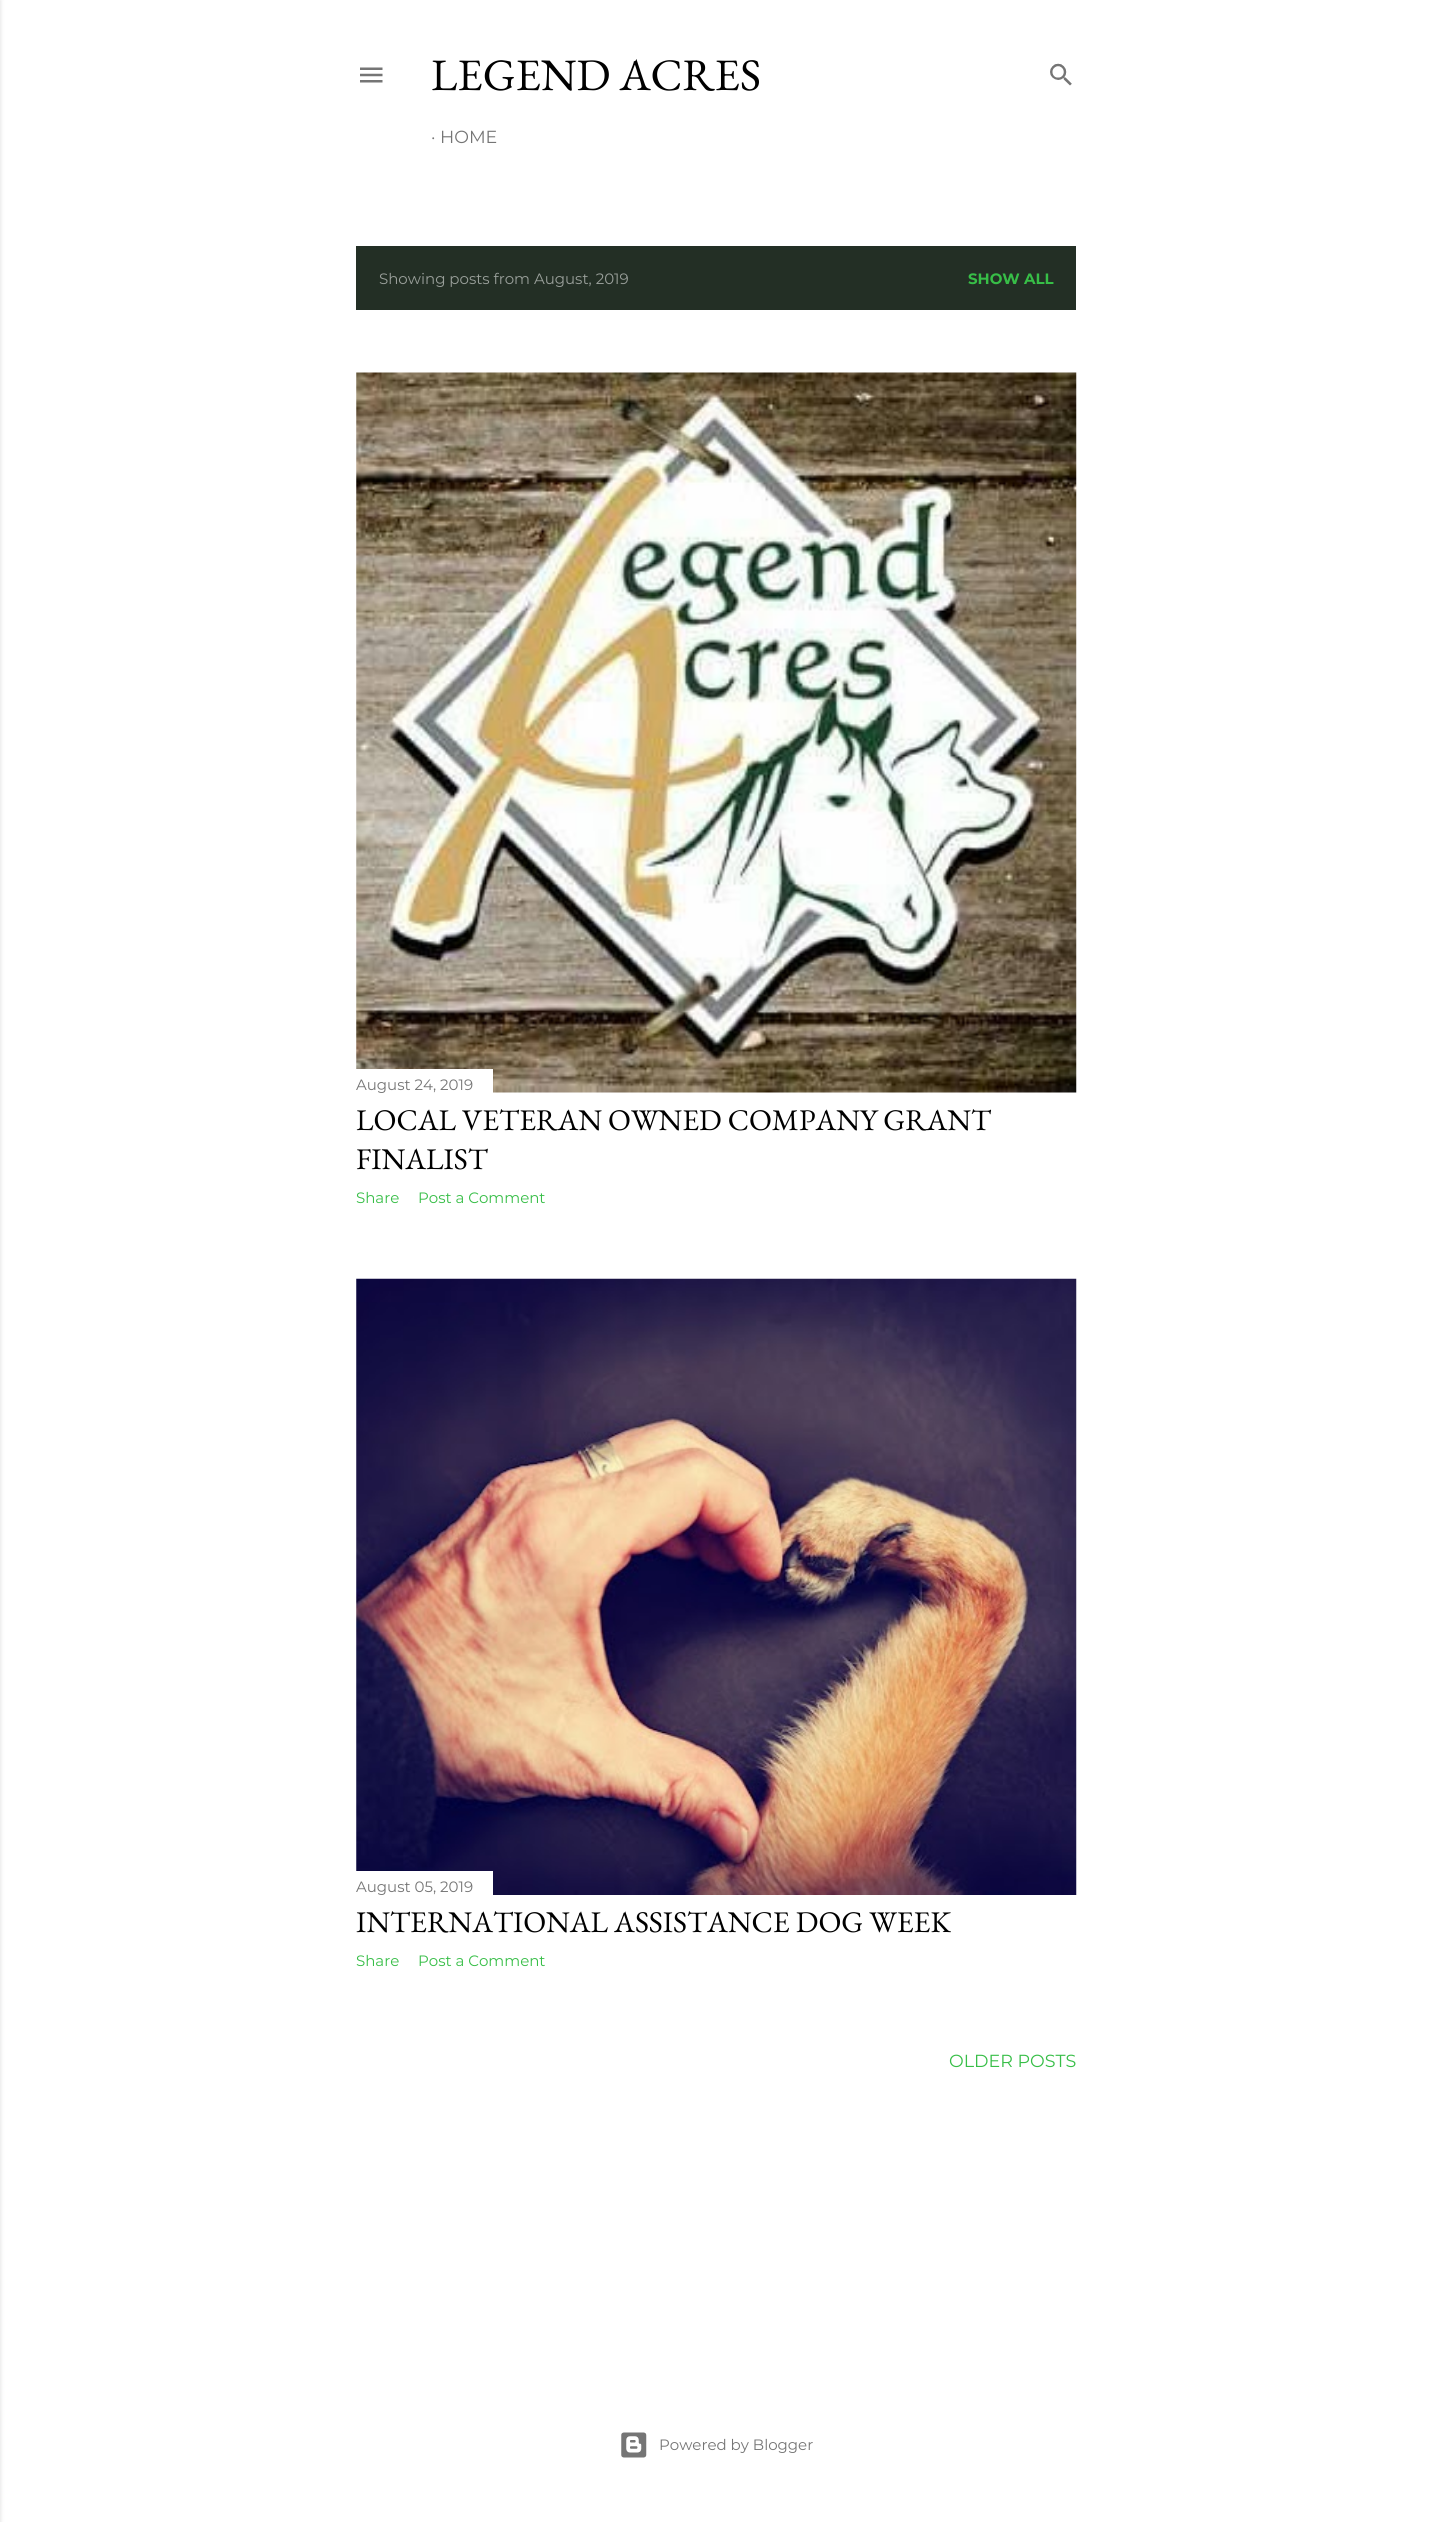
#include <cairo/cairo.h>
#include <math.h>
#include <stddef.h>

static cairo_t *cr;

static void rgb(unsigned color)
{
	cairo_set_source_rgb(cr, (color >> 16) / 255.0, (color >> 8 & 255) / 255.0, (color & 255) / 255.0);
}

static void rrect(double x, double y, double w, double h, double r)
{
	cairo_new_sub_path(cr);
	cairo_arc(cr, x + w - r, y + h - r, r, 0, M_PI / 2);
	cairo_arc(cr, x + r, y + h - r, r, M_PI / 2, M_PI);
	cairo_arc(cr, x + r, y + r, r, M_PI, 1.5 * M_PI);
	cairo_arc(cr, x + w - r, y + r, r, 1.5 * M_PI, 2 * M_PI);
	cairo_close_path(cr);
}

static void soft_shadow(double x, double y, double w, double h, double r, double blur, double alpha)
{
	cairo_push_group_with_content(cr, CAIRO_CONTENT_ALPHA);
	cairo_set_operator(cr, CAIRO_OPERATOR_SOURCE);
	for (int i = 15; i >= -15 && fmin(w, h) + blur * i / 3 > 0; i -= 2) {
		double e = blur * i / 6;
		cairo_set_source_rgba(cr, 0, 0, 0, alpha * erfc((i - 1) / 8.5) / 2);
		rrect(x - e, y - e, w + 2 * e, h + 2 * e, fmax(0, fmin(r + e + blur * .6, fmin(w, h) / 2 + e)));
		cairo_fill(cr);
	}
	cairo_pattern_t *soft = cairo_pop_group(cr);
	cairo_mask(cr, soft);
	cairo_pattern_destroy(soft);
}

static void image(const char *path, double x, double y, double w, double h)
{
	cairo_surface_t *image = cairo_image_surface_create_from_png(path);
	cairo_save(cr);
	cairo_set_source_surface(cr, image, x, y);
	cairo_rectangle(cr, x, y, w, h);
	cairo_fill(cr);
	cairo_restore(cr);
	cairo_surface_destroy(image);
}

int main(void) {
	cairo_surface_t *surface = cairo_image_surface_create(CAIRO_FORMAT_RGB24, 1432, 2522);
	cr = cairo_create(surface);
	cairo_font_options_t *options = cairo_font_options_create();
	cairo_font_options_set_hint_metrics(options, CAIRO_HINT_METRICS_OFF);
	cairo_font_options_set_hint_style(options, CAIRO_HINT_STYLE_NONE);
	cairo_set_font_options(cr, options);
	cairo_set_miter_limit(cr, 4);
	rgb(0xffffff);
	cairo_paint(cr);
	rgb(0x000000);
	soft_shadow(-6, 0, 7, 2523, 0, 2, 0.1);
	image("img/1.png", 360, 67, 23, 16);
	image("img/2.png", 1050, 63, 22, 23);
	rgb(0x232f25);
	cairo_rectangle(cr, 356, 246, 720, 64);
	cairo_fill(cr);
	image("img/3.png", 356, 372, 721, 721);
	rgb(0xffffff);
	cairo_rectangle(cr, 356, 1069, 137, 24);
	cairo_fill(cr);
	image("img/4.png", 356, 1278, 721, 617);
	cairo_rectangle(cr, 356, 1871, 137, 24);
	cairo_fill(cr);
	image("img/5.png", 621, 2432, 26, 26);
	cairo_select_font_face(cr, "EB Garamond", CAIRO_FONT_SLANT_NORMAL, CAIRO_FONT_WEIGHT_NORMAL);
	cairo_set_font_size(cr, 45);
	rgb(0x000000);
	cairo_move_to(cr, 431, 90);
	cairo_show_text(cr, "LEGEND ACRES");
	cairo_select_font_face(cr, "Montserrat", CAIRO_FONT_SLANT_NORMAL, CAIRO_FONT_WEIGHT_NORMAL);
	cairo_set_font_size(cr, 17.5);
	rgb(0x757575);
	cairo_move_to(cr, 431, 143);
	cairo_show_text(cr, "· HOME");
	cairo_set_font_size(cr, 15);
	rgb(0x999f9a);
	cairo_move_to(cr, 379, 284);
	cairo_show_text(cr, "Showing posts from August, 2019");
	cairo_select_font_face(cr, "Montserrat", CAIRO_FONT_SLANT_NORMAL, CAIRO_FONT_WEIGHT_BOLD);
	rgb(0x37be47);
	cairo_move_to(cr, 968, 284);
	cairo_show_text(cr, "SHOW ALL");
	cairo_select_font_face(cr, "Montserrat", CAIRO_FONT_SLANT_NORMAL, CAIRO_FONT_WEIGHT_NORMAL);
	rgb(0x757575);
	cairo_move_to(cr, 356, 1090);
	cairo_show_text(cr, "August 24, 2019");
	cairo_select_font_face(cr, "EB Garamond", CAIRO_FONT_SLANT_NORMAL, CAIRO_FONT_WEIGHT_NORMAL);
	cairo_set_font_size(cr, 30);
	rgb(0x000000);
	cairo_move_to(cr, 356, 1130);
	cairo_show_text(cr, "LOCAL VETERAN OWNED COMPANY GRANT");
	cairo_move_to(cr, 356, 1169);
	cairo_show_text(cr, "FINALIST");
	cairo_select_font_face(cr, "Montserrat", CAIRO_FONT_SLANT_NORMAL, CAIRO_FONT_WEIGHT_NORMAL);
	cairo_set_font_size(cr, 15);
	rgb(0x37be47);
	cairo_move_to(cr, 356, 1203);
	cairo_show_text(cr, "Share");
	cairo_move_to(cr, 418, 1203);
	cairo_show_text(cr, "Post a Comment");
	rgb(0x757575);
	cairo_move_to(cr, 356, 1892);
	cairo_show_text(cr, "August 05, 2019");
	cairo_select_font_face(cr, "EB Garamond", CAIRO_FONT_SLANT_NORMAL, CAIRO_FONT_WEIGHT_NORMAL);
	cairo_set_font_size(cr, 30);
	rgb(0x000000);
	cairo_move_to(cr, 356, 1932);
	cairo_show_text(cr, "INTERNATIONAL ASSISTANCE DOG WEEK");
	cairo_select_font_face(cr, "Montserrat", CAIRO_FONT_SLANT_NORMAL, CAIRO_FONT_WEIGHT_NORMAL);
	cairo_set_font_size(cr, 15);
	rgb(0x37be47);
	cairo_move_to(cr, 356, 1966);
	cairo_show_text(cr, "Share");
	cairo_move_to(cr, 418, 1966);
	cairo_show_text(cr, "Post a Comment");
	cairo_set_font_size(cr, 17.5);
	cairo_move_to(cr, 949, 2067);
	cairo_show_text(cr, "OLDER POSTS");
	cairo_set_font_size(cr, 15);
	rgb(0x757575);
	cairo_move_to(cr, 659, 2450);
	cairo_show_text(cr, "Powered by Blogger");
	cairo_surface_write_to_png(surface, "page.png");
	cairo_font_options_destroy(options);
	cairo_destroy(cr);
	cairo_surface_destroy(surface);
	return 0;
}
